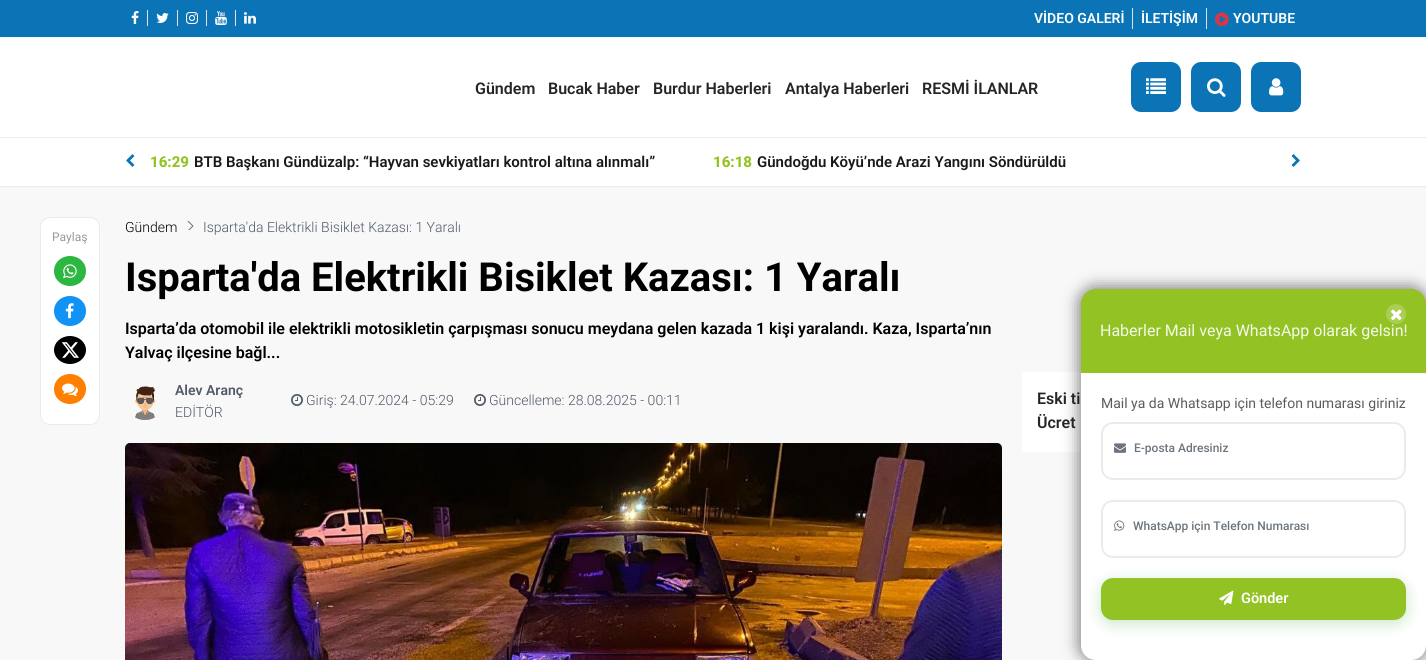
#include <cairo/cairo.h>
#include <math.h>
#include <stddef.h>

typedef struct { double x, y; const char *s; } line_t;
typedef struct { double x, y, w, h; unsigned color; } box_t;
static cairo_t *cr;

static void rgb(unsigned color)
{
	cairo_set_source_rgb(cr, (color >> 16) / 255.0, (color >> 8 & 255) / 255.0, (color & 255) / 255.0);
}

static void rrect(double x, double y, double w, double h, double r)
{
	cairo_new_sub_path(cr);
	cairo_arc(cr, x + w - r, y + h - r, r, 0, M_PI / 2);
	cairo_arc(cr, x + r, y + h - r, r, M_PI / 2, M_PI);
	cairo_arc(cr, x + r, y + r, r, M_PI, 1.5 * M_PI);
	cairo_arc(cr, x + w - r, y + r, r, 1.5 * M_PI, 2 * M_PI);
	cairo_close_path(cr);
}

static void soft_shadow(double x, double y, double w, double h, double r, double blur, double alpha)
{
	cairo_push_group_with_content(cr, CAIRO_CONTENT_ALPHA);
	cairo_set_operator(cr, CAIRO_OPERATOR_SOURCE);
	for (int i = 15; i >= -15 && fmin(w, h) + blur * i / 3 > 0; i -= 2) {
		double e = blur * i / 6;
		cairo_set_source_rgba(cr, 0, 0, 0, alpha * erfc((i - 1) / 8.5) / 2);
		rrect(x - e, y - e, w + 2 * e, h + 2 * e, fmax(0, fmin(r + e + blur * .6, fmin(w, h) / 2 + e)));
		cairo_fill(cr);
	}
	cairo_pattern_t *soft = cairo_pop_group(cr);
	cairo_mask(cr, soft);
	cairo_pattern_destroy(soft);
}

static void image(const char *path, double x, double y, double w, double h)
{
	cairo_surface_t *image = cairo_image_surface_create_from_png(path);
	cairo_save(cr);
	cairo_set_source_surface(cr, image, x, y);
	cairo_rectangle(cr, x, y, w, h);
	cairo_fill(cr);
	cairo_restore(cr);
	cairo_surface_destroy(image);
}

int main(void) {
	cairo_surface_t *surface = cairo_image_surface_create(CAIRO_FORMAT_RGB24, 1426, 660);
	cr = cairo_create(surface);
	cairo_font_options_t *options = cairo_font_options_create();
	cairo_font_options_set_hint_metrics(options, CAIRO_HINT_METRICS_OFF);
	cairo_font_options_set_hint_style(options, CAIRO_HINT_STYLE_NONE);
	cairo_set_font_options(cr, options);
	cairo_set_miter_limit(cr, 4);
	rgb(0xf8f8f8);
	cairo_paint(cr);
	rgb(0x0a74b7);
	cairo_rectangle(cr, 0, 0, 1426, 37);
	cairo_fill(cr);
	rgb(0xdee2e6);
	cairo_rectangle(cr, 147, 10, 1, 16);
	cairo_fill(cr);
	image("img/1.png", 131, 11, 8, 13);
	cairo_rectangle(cr, 177, 10, 1, 16);
	cairo_fill(cr);
	image("img/2.png", 156, 13, 13, 10);
	cairo_rectangle(cr, 206, 10, 1, 16);
	cairo_fill(cr);
	image("img/3.png", 186, 12, 12, 12);
	cairo_rectangle(cr, 235, 10, 1, 16);
	cairo_fill(cr);
	image("img/4.png", 215, 11, 12, 14);
	image("img/5.png", 244, 12, 12, 12);
	cairo_rectangle(cr, 1132, 8, 1, 21);
	cairo_fill(cr);
	cairo_rectangle(cr, 1206, 8, 1, 21);
	cairo_fill(cr);
	image("img/6.png", 1215, 12, 14, 15);
	rgb(0xffffff);
	cairo_rectangle(cr, 0, 37, 1426, 100);
	cairo_fill(cr);
	rgb(0x0a74b7);
	rrect(1131, 62, 50, 50, 10);
	cairo_fill(cr);
	image("img/7.png", 1146, 78, 20, 16);
	rrect(1191, 62, 50, 50, 10);
	cairo_fill(cr);
	image("img/8.png", 1207, 78, 19, 19);
	rrect(1251, 62, 50, 50, 10);
	cairo_fill(cr);
	image("img/9.png", 1269, 78, 15, 18);
	{
		static const box_t items[] = {
			{0, 138, 1426, 48, 0xffffff},
			{0, 137, 1426, 1, 0xeaebec},
			{0, 186, 1426, 1, 0xeaebec},
		};
		for (size_t i = 0; i < sizeof items / sizeof *items; i++) {
			rgb(items[i].color);
			cairo_rectangle(cr, items[i].x, items[i].y, items[i].w, items[i].h);
			cairo_fill(cr);
		}
	}
	image("img/10.png", 126, 154, 9, 13);
	image("img/11.png", 1291, 154, 9, 13);
	rgb(0xffffff);
	rrect(40.5, 217.5, 59, 207, 9.5);
	cairo_fill_preserve(cr);
	rgb(0xeaebec);
	cairo_set_line_width(cr, 1);
	cairo_stroke(cr);
	rgb(0x2cb742);
	cairo_new_path(cr);
	cairo_move_to(cr, 70, 256);
	cairo_curve_to(cr, 79, 256, 86, 262.5, 86, 271);
	cairo_curve_to(cr, 86, 279.5, 79, 286, 70, 286);
	cairo_curve_to(cr, 61, 286, 54, 279.5, 54, 271);
	cairo_curve_to(cr, 54, 262.5, 61, 256, 70, 256);
	cairo_close_path(cr);
	cairo_fill(cr);
	image("img/12.png", 63, 264, 14, 15);
	rgb(0x1093f4);
	cairo_new_path(cr);
	cairo_move_to(cr, 70, 296);
	cairo_curve_to(cr, 79, 296, 86, 302.5, 86, 311);
	cairo_curve_to(cr, 86, 319.5, 79, 326, 70, 326);
	cairo_curve_to(cr, 61, 326, 54, 319.5, 54, 311);
	cairo_curve_to(cr, 54, 302.5, 61, 296, 70, 296);
	cairo_close_path(cr);
	cairo_fill(cr);
	image("img/13.png", 65, 303, 9, 16);
	rgb(0x000000);
	cairo_new_path(cr);
	cairo_move_to(cr, 70, 336);
	cairo_curve_to(cr, 79, 336, 86, 342.5, 86, 350);
	cairo_curve_to(cr, 86, 357.5, 79, 364, 70, 364);
	cairo_curve_to(cr, 61, 364, 54, 357.5, 54, 350);
	cairo_curve_to(cr, 54, 342.5, 61, 336, 70, 336);
	cairo_close_path(cr);
	cairo_fill(cr);
	image("img/14.png", 61, 342, 18, 16);
	rgb(0xff7f00);
	cairo_new_path(cr);
	cairo_move_to(cr, 70, 374);
	cairo_curve_to(cr, 79, 374, 86, 380.5, 86, 389);
	cairo_curve_to(cr, 86, 397.5, 79, 404, 70, 404);
	cairo_curve_to(cr, 61, 404, 54, 397.5, 54, 389);
	cairo_curve_to(cr, 54, 380.5, 61, 374, 70, 374);
	cairo_close_path(cr);
	cairo_fill(cr);
	image("img/15.png", 62, 383, 16, 14);
	image("img/16.png", 187, 221, 7, 9);
	image("img/17.png", 135, 386, 21, 34);
	image("img/18.png", 291, 394, 12, 12);
	image("img/18.png", 474, 394, 12, 12);
	image("img/19.png", 125, 443, 877, 217);
	rgb(0xffffff);
	cairo_rectangle(cr, 1022, 372, 59, 80);
	cairo_fill(cr);
	rgb(0x000000);
	soft_shadow(1078, 286, 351, 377, 18, 7.5, 0.46);
	rgb(0x93c225);
	cairo_new_path(cr);
	cairo_move_to(cr, 1096, 289);
	cairo_line_to(cr, 1411, 289);
	cairo_curve_to(cr, 1419.5, 289, 1426, 295.5, 1426, 304);
	cairo_line_to(cr, 1426, 373);
	cairo_line_to(cr, 1081, 373);
	cairo_line_to(cr, 1081, 304);
	cairo_curve_to(cr, 1081, 295.5, 1087.5, 289, 1096, 289);
	cairo_close_path(cr);
	cairo_fill(cr);
	rgb(0xa9ce51);
	cairo_arc(cr, 1396, 314, 10, 0, 2 * M_PI);
	cairo_fill(cr);
	image("img/20.png", 1391, 309, 11, 12);
	rgb(0xffffff);
	cairo_new_path(cr);
	cairo_move_to(cr, 1081, 373);
	cairo_line_to(cr, 1426, 373);
	cairo_line_to(cr, 1426, 645);
	cairo_curve_to(cr, 1426, 653.5, 1419.5, 660, 1411, 660);
	cairo_line_to(cr, 1096, 660);
	cairo_curve_to(cr, 1087.5, 660, 1081, 653.5, 1081, 645);
	cairo_close_path(cr);
	cairo_fill(cr);
	rrect(1102, 423, 303, 56, 11);
	rgb(0xe9ecef);
	cairo_set_line_width(cr, 2);
	cairo_stroke(cr);
	image("img/21.png", 1114, 443, 12, 10);
	rrect(1102, 501, 303, 56, 11);
	cairo_stroke(cr);
	image("img/22.png", 1114, 520, 11, 11);
	rgb(0x4caf50);
	soft_shadow(1101, 582, 305, 42, 12, 7.5, 0.3);
	rgb(0x93c225);
	rrect(1101, 578, 305, 42, 12);
	cairo_fill(cr);
	image("img/23.png", 1219, 590, 15, 15);
	cairo_select_font_face(cr, "Roboto SemiBold", CAIRO_FONT_SLANT_NORMAL, CAIRO_FONT_WEIGHT_NORMAL);
	cairo_set_font_size(cr, 14);
	rgb(0xffffff);
	{
		static const line_t items[] = {
			{1034, 23, "VİDEO GALERİ"},
			{1141, 23, "İLETİŞİM"},
			{1233, 23, "YOUTUBE"},
		};
		for (size_t i = 0; i < sizeof items / sizeof *items; i++) {
			cairo_move_to(cr, items[i].x, items[i].y);
			cairo_show_text(cr, items[i].s);
		}
	}
	cairo_set_font_size(cr, 16);
	rgb(0x252525);
	{
		static const line_t items[] = {
			{475, 94, "Gündem"},
			{548, 94, "Bucak Haber"},
			{653, 94, "Burdur Haberleri"},
			{785, 94, "Antalya Haberleri"},
			{922, 94, "RESMİ İLANLAR"},
		};
		for (size_t i = 0; i < sizeof items / sizeof *items; i++) {
			cairo_move_to(cr, items[i].x, items[i].y);
			cairo_show_text(cr, items[i].s);
		}
	}
	cairo_select_font_face(cr, "Roboto ExtraBold", CAIRO_FONT_SLANT_NORMAL, CAIRO_FONT_WEIGHT_NORMAL);
	cairo_set_font_size(cr, 15);
	rgb(0x93c225);
	cairo_move_to(cr, 150, 167);
	cairo_show_text(cr, "16:29");
	cairo_select_font_face(cr, "Roboto SemiBold", CAIRO_FONT_SLANT_NORMAL, CAIRO_FONT_WEIGHT_NORMAL);
	rgb(0x191919);
	cairo_move_to(cr, 194, 167);
	cairo_show_text(cr, "BTB Başkanı Gündüzalp: “Hayvan sevkiyatları kontrol altına alınmalı”");
	cairo_select_font_face(cr, "Roboto ExtraBold", CAIRO_FONT_SLANT_NORMAL, CAIRO_FONT_WEIGHT_NORMAL);
	rgb(0x93c225);
	cairo_move_to(cr, 713, 167);
	cairo_show_text(cr, "16:18");
	cairo_select_font_face(cr, "Roboto SemiBold", CAIRO_FONT_SLANT_NORMAL, CAIRO_FONT_WEIGHT_NORMAL);
	rgb(0x191919);
	cairo_move_to(cr, 757, 167);
	cairo_show_text(cr, "Gündoğdu Köyü’nde Arazi Yangını Söndürüldü");
	cairo_select_font_face(cr, "Roboto", CAIRO_FONT_SLANT_NORMAL, CAIRO_FONT_WEIGHT_NORMAL);
	cairo_set_font_size(cr, 12);
	rgb(0x999999);
	cairo_move_to(cr, 52, 241);
	cairo_show_text(cr, "Paylaş");
	cairo_select_font_face(cr, "Roboto Light", CAIRO_FONT_SLANT_NORMAL, CAIRO_FONT_WEIGHT_NORMAL);
	cairo_set_font_size(cr, 14);
	rgb(0x000000);
	cairo_move_to(cr, 125, 232);
	cairo_show_text(cr, "Gündem");
	rgb(0x505a68);
	cairo_move_to(cr, 203, 232);
	cairo_show_text(cr, "Isparta'da Elektrikli Bisiklet Kazası: 1 Yaralı");
	cairo_select_font_face(cr, "Roboto", CAIRO_FONT_SLANT_NORMAL, CAIRO_FONT_WEIGHT_BOLD);
	cairo_set_font_size(cr, 40);
	rgb(0x000000);
	cairo_move_to(cr, 125, 291);
	cairo_show_text(cr, "Isparta'da Elektrikli Bisiklet Kazası: 1 Yaralı");
	cairo_select_font_face(cr, "Roboto SemiBold", CAIRO_FONT_SLANT_NORMAL, CAIRO_FONT_WEIGHT_NORMAL);
	cairo_set_font_size(cr, 16);
	cairo_move_to(cr, 125, 334);
	cairo_show_text(cr, "Isparta’da otomobil ile elektrikli motosikletin çarpışması sonucu meydana gelen kazada 1 kişi yaralandı. Kaza, Isparta’nın");
	cairo_move_to(cr, 125, 358);
	cairo_show_text(cr, "Yalvaç ilçesine bağl...");
	cairo_set_font_size(cr, 14);
	rgb(0x505a68);
	cairo_move_to(cr, 175, 395);
	cairo_show_text(cr, "Alev Aranç");
	cairo_select_font_face(cr, "Roboto Light", CAIRO_FONT_SLANT_NORMAL, CAIRO_FONT_WEIGHT_NORMAL);
	{
		static const line_t items[] = {
			{175, 417, "EDİTÖR"},
			{306, 405, "Giriş: 24.07.2024 - 05:29"},
			{489, 405, "Güncelleme: 28.08.2025 - 00:11"},
		};
		for (size_t i = 0; i < sizeof items / sizeof *items; i++) {
			cairo_move_to(cr, items[i].x, items[i].y);
			cairo_show_text(cr, items[i].s);
		}
	}
	cairo_select_font_face(cr, "Roboto SemiBold", CAIRO_FONT_SLANT_NORMAL, CAIRO_FONT_WEIGHT_NORMAL);
	cairo_set_font_size(cr, 16);
	rgb(0x252525);
	cairo_move_to(cr, 1037, 404);
	cairo_show_text(cr, "Eski ti");
	cairo_move_to(cr, 1037, 428);
	cairo_show_text(cr, "Ücret");
	cairo_select_font_face(cr, "Roboto", CAIRO_FONT_SLANT_NORMAL, CAIRO_FONT_WEIGHT_NORMAL);
	rgb(0xf4f9e9);
	cairo_move_to(cr, 1100, 336);
	cairo_show_text(cr, "Haberler Mail veya WhatsApp olarak gelsin!");
	cairo_set_font_size(cr, 14);
	rgb(0x595c5f);
	cairo_move_to(cr, 1101, 408);
	cairo_show_text(cr, "Mail ya da Whatsapp için telefon numarası giriniz");
	cairo_select_font_face(cr, "Roboto Medium", CAIRO_FONT_SLANT_NORMAL, CAIRO_FONT_WEIGHT_NORMAL);
	cairo_set_font_size(cr, 12);
	rgb(0x6c757d);
	cairo_move_to(cr, 1134, 452);
	cairo_show_text(cr, "E-posta Adresiniz");
	cairo_move_to(cr, 1133, 530);
	cairo_show_text(cr, "WhatsApp için Telefon Numarası");
	cairo_select_font_face(cr, "Roboto SemiBold", CAIRO_FONT_SLANT_NORMAL, CAIRO_FONT_WEIGHT_NORMAL);
	cairo_set_font_size(cr, 14.5);
	rgb(0xffffff);
	cairo_move_to(cr, 1241, 603);
	cairo_show_text(cr, "Gönder");
	cairo_surface_write_to_png(surface, "page.png");
	cairo_font_options_destroy(options);
	cairo_destroy(cr);
	cairo_surface_destroy(surface);
	return 0;
}
